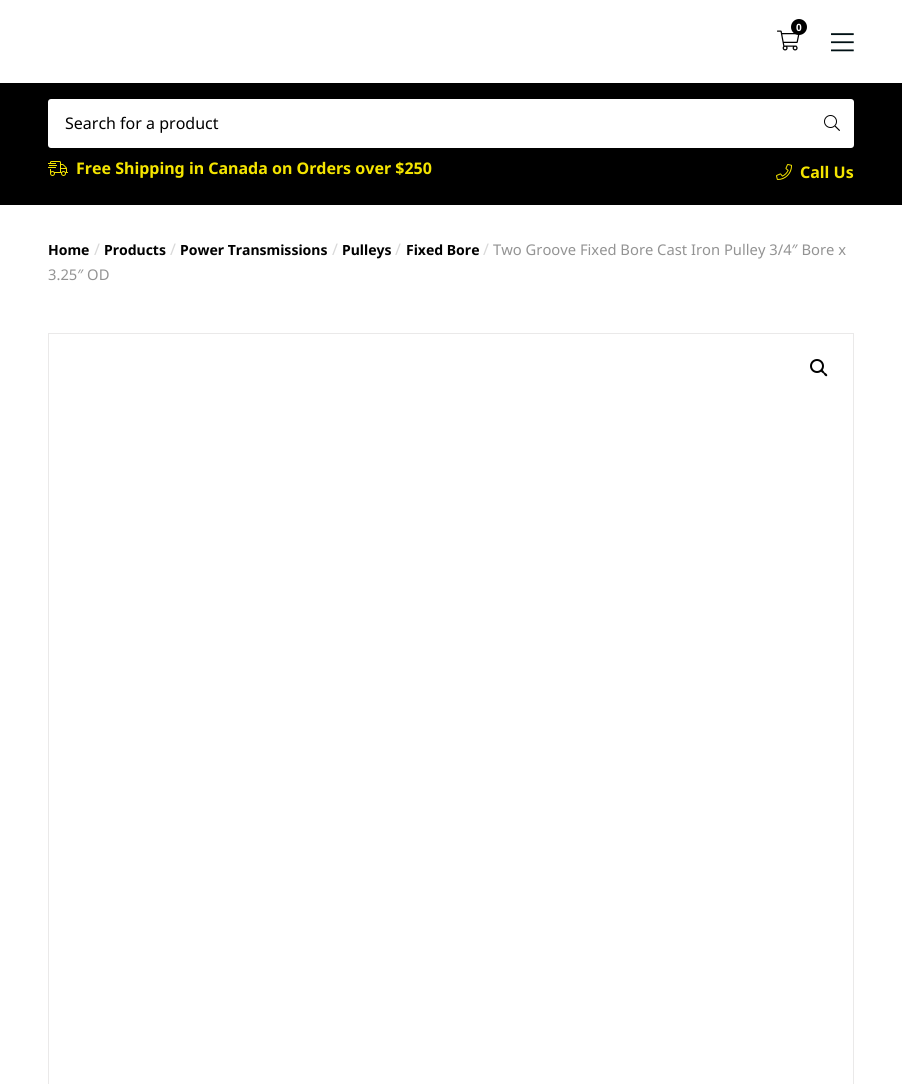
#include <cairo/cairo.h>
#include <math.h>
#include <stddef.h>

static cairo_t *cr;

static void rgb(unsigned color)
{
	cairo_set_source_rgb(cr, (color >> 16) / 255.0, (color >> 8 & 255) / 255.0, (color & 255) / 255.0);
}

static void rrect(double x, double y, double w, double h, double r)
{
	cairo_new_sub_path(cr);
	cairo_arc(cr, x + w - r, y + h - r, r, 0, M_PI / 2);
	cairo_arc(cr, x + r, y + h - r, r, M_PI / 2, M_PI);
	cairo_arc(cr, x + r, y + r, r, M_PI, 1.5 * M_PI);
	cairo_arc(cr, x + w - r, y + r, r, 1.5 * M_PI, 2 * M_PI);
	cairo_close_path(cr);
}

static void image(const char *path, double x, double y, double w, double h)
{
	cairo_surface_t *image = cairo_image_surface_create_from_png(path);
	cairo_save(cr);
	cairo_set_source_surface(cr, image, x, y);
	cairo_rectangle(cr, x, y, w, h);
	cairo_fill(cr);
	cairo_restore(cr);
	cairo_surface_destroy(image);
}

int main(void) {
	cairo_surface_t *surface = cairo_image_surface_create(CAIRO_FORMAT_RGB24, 902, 1084);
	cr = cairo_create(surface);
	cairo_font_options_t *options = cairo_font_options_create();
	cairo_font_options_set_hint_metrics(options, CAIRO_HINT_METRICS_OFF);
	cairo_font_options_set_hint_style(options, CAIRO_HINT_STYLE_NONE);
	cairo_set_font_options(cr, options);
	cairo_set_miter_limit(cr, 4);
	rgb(0xffffff);
	cairo_paint(cr);
	image("img/1.png", 777, 30, 23, 21);
	rgb(0x000000);
	cairo_arc(cr, 799, 27, 8, 0, 2 * M_PI);
	cairo_fill(cr);
	image("img/2.png", 831, 33, 23, 19);
	cairo_rectangle(cr, 0, 83, 902, 122);
	cairo_fill(cr);
	rgb(0xffffff);
	rrect(48, 99, 806, 49, 3);
	cairo_fill(cr);
	image("img/3.png", 824, 115, 16, 16);
	image("img/4.png", 48, 161, 20, 15);
	image("img/5.png", 776, 164, 16, 16);
	cairo_rectangle(cr, 48.5, 333.5, 805, 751);
	rgb(0xeae9e9);
	cairo_set_line_width(cr, 1);
	cairo_stroke(cr);
	cairo_arc(cr, 817, 366, 6, 0, 2 * M_PI);
	rgb(0x000000);
	cairo_set_line_width(cr, 2);
	cairo_stroke(cr);
	cairo_new_path(cr);
	cairo_move_to(cr, 821, 370);
	cairo_curve_to(cr, 822.5, 369, 824, 371.5, 824.5, 372.5);
	cairo_curve_to(cr, 825.5, 373, 828, 374.5, 827, 376);
	cairo_curve_to(cr, 825.5, 377, 824, 374.5, 823.5, 373.5);
	cairo_curve_to(cr, 822.5, 373, 820, 371.5, 821, 370);
	cairo_close_path(cr);
	cairo_fill(cr);
	cairo_select_font_face(cr, "Noto Sans", CAIRO_FONT_SLANT_NORMAL, CAIRO_FONT_WEIGHT_BOLD);
	cairo_set_font_size(cr, 10);
	rgb(0xffffff);
	cairo_move_to(cr, 796, 31);
	cairo_show_text(cr, "0");
	cairo_select_font_face(cr, "Noto Sans", CAIRO_FONT_SLANT_NORMAL, CAIRO_FONT_WEIGHT_NORMAL);
	cairo_set_font_size(cr, 16);
	rgb(0x000000);
	cairo_move_to(cr, 65, 129);
	cairo_show_text(cr, "Search for a product");
	cairo_select_font_face(cr, "Noto Sans", CAIRO_FONT_SLANT_NORMAL, CAIRO_FONT_WEIGHT_BOLD);
	rgb(0xf4e400);
	cairo_move_to(cr, 76, 174);
	cairo_show_text(cr, "Free Shipping in Canada on Orders over $250");
	cairo_move_to(cr, 800, 178);
	cairo_show_text(cr, "Call Us");
	cairo_set_font_size(cr, 14);
	rgb(0x000000);
	cairo_move_to(cr, 48, 255);
	cairo_show_text(cr, "Home");
	cairo_select_font_face(cr, "Noto Sans", CAIRO_FONT_SLANT_NORMAL, CAIRO_FONT_WEIGHT_NORMAL);
	cairo_set_font_size(cr, 16);
	rgb(0xd9d9d9);
	cairo_move_to(cr, 94, 255);
	cairo_show_text(cr, "/");
	cairo_select_font_face(cr, "Noto Sans", CAIRO_FONT_SLANT_NORMAL, CAIRO_FONT_WEIGHT_BOLD);
	cairo_set_font_size(cr, 14);
	rgb(0x000000);
	cairo_move_to(cr, 104, 255);
	cairo_show_text(cr, "Products");
	cairo_select_font_face(cr, "Noto Sans", CAIRO_FONT_SLANT_NORMAL, CAIRO_FONT_WEIGHT_NORMAL);
	cairo_set_font_size(cr, 16);
	rgb(0xd9d9d9);
	cairo_move_to(cr, 170, 255);
	cairo_show_text(cr, "/");
	cairo_select_font_face(cr, "Noto Sans", CAIRO_FONT_SLANT_NORMAL, CAIRO_FONT_WEIGHT_BOLD);
	cairo_set_font_size(cr, 14);
	rgb(0x000000);
	cairo_move_to(cr, 180, 255);
	cairo_show_text(cr, "Power Transmissions");
	cairo_select_font_face(cr, "Noto Sans", CAIRO_FONT_SLANT_NORMAL, CAIRO_FONT_WEIGHT_NORMAL);
	cairo_set_font_size(cr, 16);
	rgb(0xd9d9d9);
	cairo_move_to(cr, 332, 255);
	cairo_show_text(cr, "/");
	cairo_select_font_face(cr, "Noto Sans", CAIRO_FONT_SLANT_NORMAL, CAIRO_FONT_WEIGHT_BOLD);
	cairo_set_font_size(cr, 14);
	rgb(0x000000);
	cairo_move_to(cr, 342, 255);
	cairo_show_text(cr, "Pulleys");
	cairo_select_font_face(cr, "Noto Sans", CAIRO_FONT_SLANT_NORMAL, CAIRO_FONT_WEIGHT_NORMAL);
	cairo_set_font_size(cr, 16);
	rgb(0xd9d9d9);
	cairo_move_to(cr, 395, 255);
	cairo_show_text(cr, "/");
	cairo_select_font_face(cr, "Noto Sans", CAIRO_FONT_SLANT_NORMAL, CAIRO_FONT_WEIGHT_BOLD);
	cairo_set_font_size(cr, 14);
	rgb(0x000000);
	cairo_move_to(cr, 406, 255);
	cairo_show_text(cr, "Fixed Bore");
	cairo_select_font_face(cr, "Noto Sans", CAIRO_FONT_SLANT_NORMAL, CAIRO_FONT_WEIGHT_NORMAL);
	cairo_set_font_size(cr, 16);
	rgb(0xd9d9d9);
	cairo_move_to(cr, 483, 255);
	cairo_show_text(cr, "/");
	cairo_set_font_size(cr, 14.75);
	rgb(0x939393);
	cairo_move_to(cr, 493, 255);
	cairo_show_text(cr, "Two Groove Fixed Bore Cast Iron Pulley 3/4″ Bore x");
	cairo_move_to(cr, 48, 280);
	cairo_show_text(cr, "3.25″ OD");
	cairo_surface_write_to_png(surface, "page.png");
	cairo_font_options_destroy(options);
	cairo_destroy(cr);
	cairo_surface_destroy(surface);
	return 0;
}
